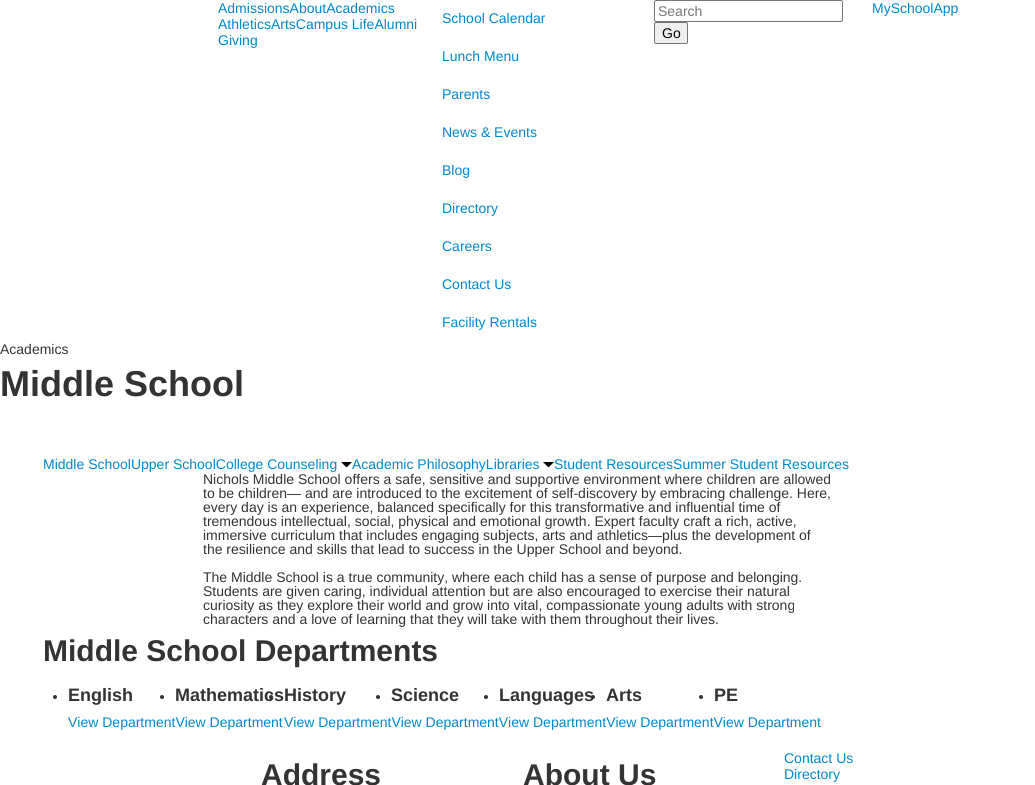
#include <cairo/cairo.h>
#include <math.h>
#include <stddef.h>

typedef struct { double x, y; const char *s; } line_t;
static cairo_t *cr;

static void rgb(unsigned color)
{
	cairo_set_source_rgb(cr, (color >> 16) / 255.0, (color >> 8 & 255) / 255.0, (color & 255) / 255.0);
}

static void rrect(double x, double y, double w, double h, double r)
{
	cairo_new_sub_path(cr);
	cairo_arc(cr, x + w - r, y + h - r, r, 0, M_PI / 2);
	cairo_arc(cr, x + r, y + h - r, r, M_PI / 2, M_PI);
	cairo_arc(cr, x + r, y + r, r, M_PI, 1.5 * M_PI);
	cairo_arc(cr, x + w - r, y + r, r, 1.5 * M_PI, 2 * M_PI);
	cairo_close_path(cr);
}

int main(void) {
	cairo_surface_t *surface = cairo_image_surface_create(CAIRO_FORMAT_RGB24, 1035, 785);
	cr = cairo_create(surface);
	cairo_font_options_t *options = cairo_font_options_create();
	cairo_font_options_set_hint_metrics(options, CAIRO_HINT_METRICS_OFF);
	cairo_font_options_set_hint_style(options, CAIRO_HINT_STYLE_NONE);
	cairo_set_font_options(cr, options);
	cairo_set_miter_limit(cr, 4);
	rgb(0xffffff);
	cairo_paint(cr);
	rrect(654.5, 0.5, 188, 21, 1.5);
	rgb(0x767676);
	cairo_set_line_width(cr, 1);
	cairo_stroke(cr);
	rgb(0xefefef);
	rrect(654.5, 22.5, 33, 21, 1.5);
	cairo_fill_preserve(cr);
	rgb(0x767676);
	cairo_stroke(cr);
	rgb(0x000000);
	cairo_new_path(cr);
	cairo_move_to(cr, 341, 462);
	cairo_line_to(cr, 352, 462);
	cairo_line_to(cr, 347, 467);
	cairo_line_to(cr, 346, 467);
	cairo_close_path(cr);
	cairo_fill(cr);
	cairo_new_path(cr);
	cairo_move_to(cr, 543, 462);
	cairo_line_to(cr, 554, 462);
	cairo_line_to(cr, 549, 467);
	cairo_line_to(cr, 548, 467);
	cairo_close_path(cr);
	cairo_fill(cr);
	rgb(0x333333);
	cairo_arc(cr, 55, 697, 2, 0, 2 * M_PI);
	cairo_fill(cr);
	cairo_arc(cr, 162, 697, 2, 0, 2 * M_PI);
	cairo_fill(cr);
	cairo_arc(cr, 378, 697, 2, 0, 2 * M_PI);
	cairo_fill(cr);
	cairo_arc(cr, 486, 697, 2, 0, 2 * M_PI);
	cairo_fill(cr);
	cairo_arc(cr, 593, 697, 2, 0, 2 * M_PI);
	cairo_fill(cr);
	cairo_arc(cr, 701, 697, 2, 0, 2 * M_PI);
	cairo_fill(cr);
	cairo_arc(cr, 271, 697, 2, 0, 2 * M_PI);
	cairo_fill(cr);
	cairo_select_font_face(cr, "Liberation Sans", CAIRO_FONT_SLANT_NORMAL, CAIRO_FONT_WEIGHT_NORMAL);
	cairo_set_font_size(cr, 14);
	rgb(0x0088cc);
	{
		static const line_t items[] = {
			{218, 13, "AdmissionsAboutAcademics"},
			{218, 29, "AthleticsArtsCampus LifeAlumni"},
			{218, 45, "Giving"},
			{442, 23, "School Calendar"},
			{442, 61, "Lunch Menu"},
			{442, 99, "Parents"},
			{442, 137, "News & Events"},
			{442, 175, "Blog"},
			{442, 213, "Directory"},
			{442, 251, "Careers"},
			{442, 289, "Contact Us"},
			{442, 327, "Facility Rentals"},
		};
		for (size_t i = 0; i < sizeof items / sizeof *items; i++) {
			cairo_move_to(cr, items[i].x, items[i].y);
			cairo_show_text(cr, items[i].s);
		}
	}
	rgb(0x757575);
	cairo_move_to(cr, 658, 16);
	cairo_show_text(cr, "Search");
	rgb(0x000000);
	cairo_move_to(cr, 662, 38);
	cairo_show_text(cr, "Go");
	rgb(0x0088cc);
	cairo_move_to(cr, 872, 13);
	cairo_show_text(cr, "MySchoolApp");
	rgb(0x333333);
	cairo_move_to(cr, 0, 354);
	cairo_show_text(cr, "Academics");
	cairo_select_font_face(cr, "Liberation Sans", CAIRO_FONT_SLANT_NORMAL, CAIRO_FONT_WEIGHT_BOLD);
	cairo_set_font_size(cr, 36);
	cairo_move_to(cr, 0, 396);
	cairo_show_text(cr, "Middle School");
	cairo_select_font_face(cr, "Liberation Sans", CAIRO_FONT_SLANT_NORMAL, CAIRO_FONT_WEIGHT_NORMAL);
	cairo_set_font_size(cr, 14);
	rgb(0x0088cc);
	{
		static const line_t items[] = {
			{43, 469, "Middle SchoolUpper SchoolCollege Counseling"},
			{352, 469, "Academic PhilosophyLibraries"},
			{554, 469, "Student ResourcesSummer Student Resources"},
		};
		for (size_t i = 0; i < sizeof items / sizeof *items; i++) {
			cairo_move_to(cr, items[i].x, items[i].y);
			cairo_show_text(cr, items[i].s);
		}
	}
	rgb(0x333333);
	{
		static const line_t items[] = {
			{203, 484, "Nichols Middle School offers a safe, sensitive and supportive environment where children are allowed"},
			{203, 498, "to be children— and are introduced to the excitement of self-discovery by embracing challenge. Here,"},
			{203, 512, "every day is an experience, balanced specifically for this transformative and influential time of"},
			{203, 526, "tremendous intellectual, social, physical and emotional growth. Expert faculty craft a rich, active,"},
			{203, 540, "immersive curriculum that includes engaging subjects, arts and athletics—plus the development of"},
			{203, 554, "the resilience and skills that lead to success in the Upper School and beyond."},
			{203, 582, "The Middle School is a true community, where each child has a sense of purpose and belonging."},
			{203, 596, "Students are given caring, individual attention but are also encouraged to exercise their natural"},
			{203, 610, "curiosity as they explore their world and grow into vital, compassionate young adults with strong"},
			{203, 624, "characters and a love of learning that they will take with them throughout their lives."},
		};
		for (size_t i = 0; i < sizeof items / sizeof *items; i++) {
			cairo_move_to(cr, items[i].x, items[i].y);
			cairo_show_text(cr, items[i].s);
		}
	}
	cairo_select_font_face(cr, "Liberation Sans", CAIRO_FONT_SLANT_NORMAL, CAIRO_FONT_WEIGHT_BOLD);
	cairo_set_font_size(cr, 30);
	cairo_move_to(cr, 43, 661);
	cairo_show_text(cr, "Middle School Departments");
	cairo_set_font_size(cr, 18);
	cairo_move_to(cr, 68, 701);
	cairo_show_text(cr, "English");
	cairo_select_font_face(cr, "Liberation Sans", CAIRO_FONT_SLANT_NORMAL, CAIRO_FONT_WEIGHT_NORMAL);
	cairo_set_font_size(cr, 14);
	rgb(0x0088cc);
	cairo_move_to(cr, 68, 727);
	cairo_show_text(cr, "View DepartmentView Department");
	cairo_select_font_face(cr, "Liberation Sans", CAIRO_FONT_SLANT_NORMAL, CAIRO_FONT_WEIGHT_BOLD);
	cairo_set_font_size(cr, 18);
	rgb(0x333333);
	{
		static const line_t items[] = {
			{175, 701, "MathematicsHistory"},
			{391, 701, "Science"},
			{499, 701, "Languages"},
			{606, 701, "Arts"},
			{714, 701, "PE"},
		};
		for (size_t i = 0; i < sizeof items / sizeof *items; i++) {
			cairo_move_to(cr, items[i].x, items[i].y);
			cairo_show_text(cr, items[i].s);
		}
	}
	cairo_select_font_face(cr, "Liberation Sans", CAIRO_FONT_SLANT_NORMAL, CAIRO_FONT_WEIGHT_NORMAL);
	cairo_set_font_size(cr, 14);
	rgb(0x0088cc);
	cairo_move_to(cr, 284, 727);
	cairo_show_text(cr, "View DepartmentView DepartmentView DepartmentView DepartmentView Department");
	cairo_select_font_face(cr, "Liberation Sans", CAIRO_FONT_SLANT_NORMAL, CAIRO_FONT_WEIGHT_BOLD);
	cairo_set_font_size(cr, 30);
	rgb(0x333333);
	cairo_move_to(cr, 261, 785);
	cairo_show_text(cr, "Address");
	cairo_move_to(cr, 523, 785);
	cairo_show_text(cr, "About Us");
	cairo_select_font_face(cr, "Liberation Sans", CAIRO_FONT_SLANT_NORMAL, CAIRO_FONT_WEIGHT_NORMAL);
	cairo_set_font_size(cr, 14);
	rgb(0x0088cc);
	cairo_move_to(cr, 784, 763);
	cairo_show_text(cr, "Contact Us");
	cairo_move_to(cr, 784, 779);
	cairo_show_text(cr, "Directory");
	cairo_surface_write_to_png(surface, "page.png");
	cairo_font_options_destroy(options);
	cairo_destroy(cr);
	cairo_surface_destroy(surface);
	return 0;
}
